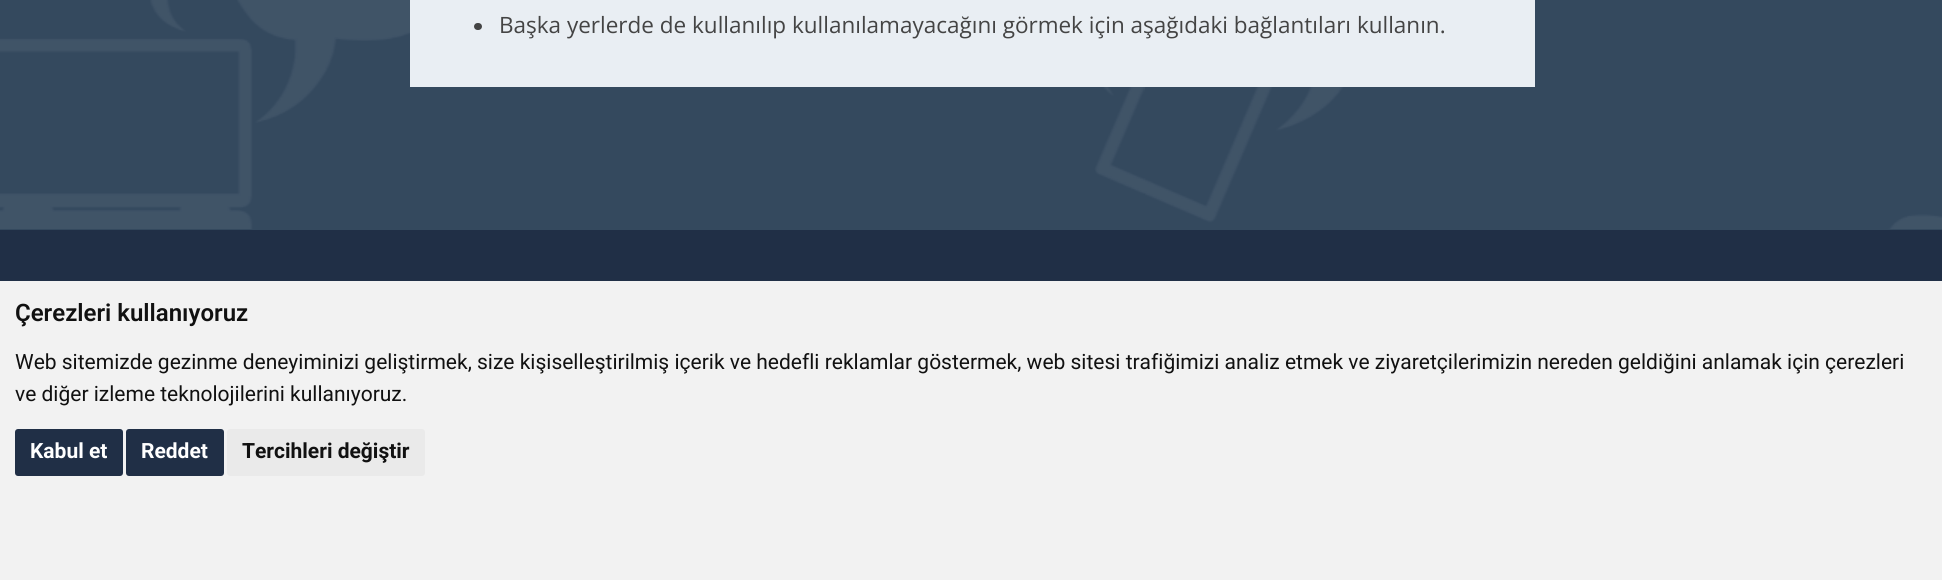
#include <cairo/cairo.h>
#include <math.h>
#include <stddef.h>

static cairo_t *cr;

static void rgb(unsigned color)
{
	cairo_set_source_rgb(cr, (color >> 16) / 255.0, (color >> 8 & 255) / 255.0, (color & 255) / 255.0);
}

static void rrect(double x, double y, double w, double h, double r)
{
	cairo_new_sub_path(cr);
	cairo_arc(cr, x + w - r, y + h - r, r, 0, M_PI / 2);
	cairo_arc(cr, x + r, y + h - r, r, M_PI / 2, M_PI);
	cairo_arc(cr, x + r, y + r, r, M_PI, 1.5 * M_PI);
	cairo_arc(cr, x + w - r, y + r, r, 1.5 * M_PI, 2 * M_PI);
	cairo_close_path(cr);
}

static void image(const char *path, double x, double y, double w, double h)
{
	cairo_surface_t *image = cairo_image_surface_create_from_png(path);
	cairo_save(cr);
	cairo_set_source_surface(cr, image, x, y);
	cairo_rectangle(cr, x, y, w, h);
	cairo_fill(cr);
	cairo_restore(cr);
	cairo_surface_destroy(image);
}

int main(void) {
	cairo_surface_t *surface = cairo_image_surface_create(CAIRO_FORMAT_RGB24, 1942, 580);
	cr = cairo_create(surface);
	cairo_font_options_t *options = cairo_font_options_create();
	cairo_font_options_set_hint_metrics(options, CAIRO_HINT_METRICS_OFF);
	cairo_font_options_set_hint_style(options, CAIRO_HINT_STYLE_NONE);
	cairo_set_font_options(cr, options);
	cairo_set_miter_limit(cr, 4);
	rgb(0x34495e);
	cairo_paint(cr);
	image("img/1.png", 0, 0, 1942, 229);
	rgb(0xe9eef3);
	cairo_rectangle(cr, 410, 0, 1125, 87);
	cairo_fill(cr);
	rgb(0x444444);
	rrect(474, 23, 8, 7, 3.5);
	cairo_fill(cr);
	rgb(0x202f46);
	cairo_rectangle(cr, 0, 230, 1942, 51);
	cairo_fill(cr);
	rgb(0xf2f2f2);
	cairo_rectangle(cr, 0, 281, 1942, 299);
	cairo_fill(cr);
	rgb(0x202f46);
	rrect(15, 429, 108, 47, 3);
	cairo_fill(cr);
	rrect(126, 429, 98, 47, 3);
	cairo_fill(cr);
	rgb(0xeaeaea);
	rrect(227, 429, 198, 47, 3);
	cairo_fill(cr);
	cairo_select_font_face(cr, "Open Sans", CAIRO_FONT_SLANT_NORMAL, CAIRO_FONT_WEIGHT_NORMAL);
	cairo_set_font_size(cr, 22.5);
	rgb(0x444444);
	cairo_move_to(cr, 499, 33);
	cairo_show_text(cr, "Başka yerlerde de kullanılıp kullanılamayacağını görmek için aşağıdaki bağlantıları kullanın.");
	cairo_select_font_face(cr, "Roboto SemiBold", CAIRO_FONT_SLANT_NORMAL, CAIRO_FONT_WEIGHT_NORMAL);
	cairo_set_font_size(cr, 24);
	rgb(0x111111);
	cairo_move_to(cr, 15, 321);
	cairo_show_text(cr, "Çerezleri kullanıyoruz");
	cairo_select_font_face(cr, "Roboto", CAIRO_FONT_SLANT_NORMAL, CAIRO_FONT_WEIGHT_NORMAL);
	cairo_set_font_size(cr, 21);
	cairo_move_to(cr, 15, 369);
	cairo_show_text(cr, "Web sitemizde gezinme deneyiminizi geliştirmek, size kişiselleştirilmiş içerik ve hedefli reklamlar göstermek, web sitesi trafiğimizi analiz etmek ve ziyaretçilerimizin nereden geldiğini anlamak için çerezleri");
	cairo_move_to(cr, 15, 401);
	cairo_show_text(cr, "ve diğer izleme teknolojilerini kullanıyoruz.");
	cairo_select_font_face(cr, "Roboto", CAIRO_FONT_SLANT_NORMAL, CAIRO_FONT_WEIGHT_BOLD);
	rgb(0xffffff);
	cairo_move_to(cr, 30, 458);
	cairo_show_text(cr, "Kabul et");
	cairo_move_to(cr, 141, 458);
	cairo_show_text(cr, "Reddet");
	rgb(0x111111);
	cairo_move_to(cr, 242, 458);
	cairo_show_text(cr, "Tercihleri değiştir");
	cairo_surface_write_to_png(surface, "page.png");
	cairo_font_options_destroy(options);
	cairo_destroy(cr);
	cairo_surface_destroy(surface);
	return 0;
}
